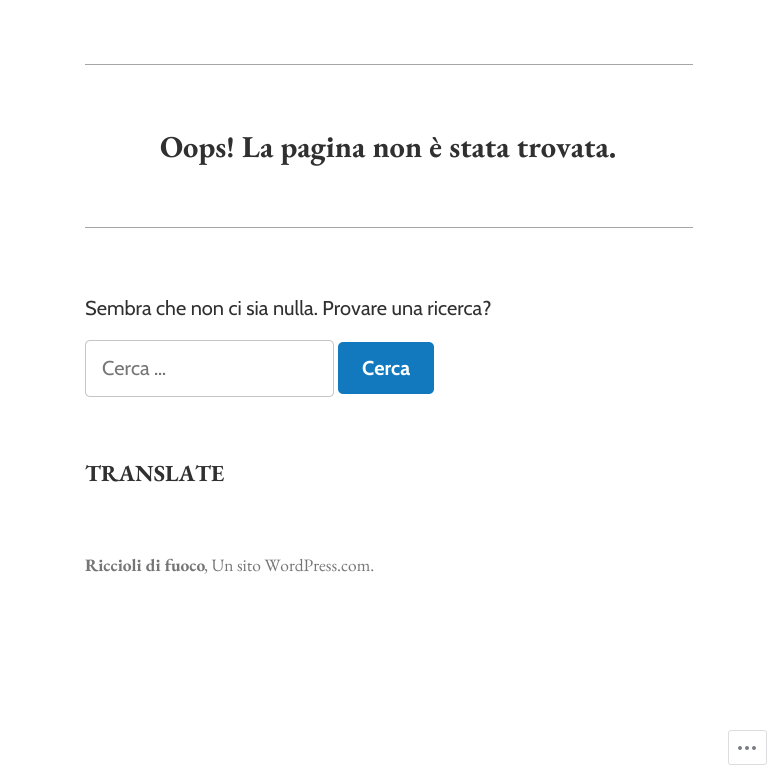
#include <cairo/cairo.h>
#include <math.h>
#include <stddef.h>

static cairo_t *cr;

static void rgb(unsigned color)
{
	cairo_set_source_rgb(cr, (color >> 16) / 255.0, (color >> 8 & 255) / 255.0, (color & 255) / 255.0);
}

static void rrect(double x, double y, double w, double h, double r)
{
	cairo_new_sub_path(cr);
	cairo_arc(cr, x + w - r, y + h - r, r, 0, M_PI / 2);
	cairo_arc(cr, x + r, y + h - r, r, M_PI / 2, M_PI);
	cairo_arc(cr, x + r, y + r, r, M_PI, 1.5 * M_PI);
	cairo_arc(cr, x + w - r, y + r, r, 1.5 * M_PI, 2 * M_PI);
	cairo_close_path(cr);
}

static void image(const char *path, double x, double y, double w, double h)
{
	cairo_surface_t *image = cairo_image_surface_create_from_png(path);
	cairo_save(cr);
	cairo_set_source_surface(cr, image, x, y);
	cairo_rectangle(cr, x, y, w, h);
	cairo_fill(cr);
	cairo_restore(cr);
	cairo_surface_destroy(image);
}

int main(void) {
	cairo_surface_t *surface = cairo_image_surface_create(CAIRO_FORMAT_RGB24, 777, 775);
	cr = cairo_create(surface);
	cairo_font_options_t *options = cairo_font_options_create();
	cairo_font_options_set_hint_metrics(options, CAIRO_HINT_METRICS_OFF);
	cairo_font_options_set_hint_style(options, CAIRO_HINT_STYLE_NONE);
	cairo_set_font_options(cr, options);
	cairo_set_miter_limit(cr, 4);
	rgb(0xffffff);
	cairo_paint(cr);
	rgb(0xa5a5a5);
	cairo_rectangle(cr, 85, 64, 608, 1);
	cairo_fill(cr);
	cairo_rectangle(cr, 85, 227, 608, 1);
	cairo_fill(cr);
	rrect(85.5, 340.5, 248, 56, 4.5);
	rgb(0xc5c5c5);
	cairo_set_line_width(cr, 1);
	cairo_stroke(cr);
	rgb(0x1279be);
	rrect(338, 342, 96, 52, 5);
	cairo_fill(cr);
	rrect(728.5, 730.5, 38, 34, 2.5);
	rgb(0xdddddf);
	cairo_stroke(cr);
	image("img/1.png", 738, 746, 18, 4);
	cairo_select_font_face(cr, "EB Garamond", CAIRO_FONT_SLANT_NORMAL, CAIRO_FONT_WEIGHT_BOLD);
	cairo_set_font_size(cr, 30.4);
	rgb(0x303030);
	cairo_move_to(cr, 160, 157);
	cairo_show_text(cr, "Oops! La pagina non è stata trovata.");
	cairo_select_font_face(cr, "Cabin", CAIRO_FONT_SLANT_NORMAL, CAIRO_FONT_WEIGHT_NORMAL);
	cairo_set_font_size(cr, 20);
	cairo_move_to(cr, 85, 315);
	cairo_show_text(cr, "Sembra che non ci sia nulla. Provare una ricerca?");
	rgb(0x757575);
	cairo_move_to(cr, 102, 375);
	cairo_show_text(cr, "Cerca …");
	cairo_select_font_face(cr, "Cabin", CAIRO_FONT_SLANT_NORMAL, CAIRO_FONT_WEIGHT_BOLD);
	rgb(0xffffff);
	cairo_move_to(cr, 362, 375);
	cairo_show_text(cr, "Cerca");
	cairo_select_font_face(cr, "EB Garamond", CAIRO_FONT_SLANT_NORMAL, CAIRO_FONT_WEIGHT_BOLD);
	cairo_set_font_size(cr, 23);
	rgb(0x303030);
	cairo_move_to(cr, 85, 481);
	cairo_show_text(cr, "TRANSLATE");
	cairo_set_font_size(cr, 17.4);
	rgb(0x757575);
	cairo_move_to(cr, 85, 571);
	cairo_show_text(cr, "Riccioli di fuoco");
	cairo_select_font_face(cr, "EB Garamond", CAIRO_FONT_SLANT_NORMAL, CAIRO_FONT_WEIGHT_NORMAL);
	cairo_move_to(cr, 204, 571);
	cairo_show_text(cr, ", Un sito WordPress.com.");
	cairo_surface_write_to_png(surface, "page.png");
	cairo_font_options_destroy(options);
	cairo_destroy(cr);
	cairo_surface_destroy(surface);
	return 0;
}
